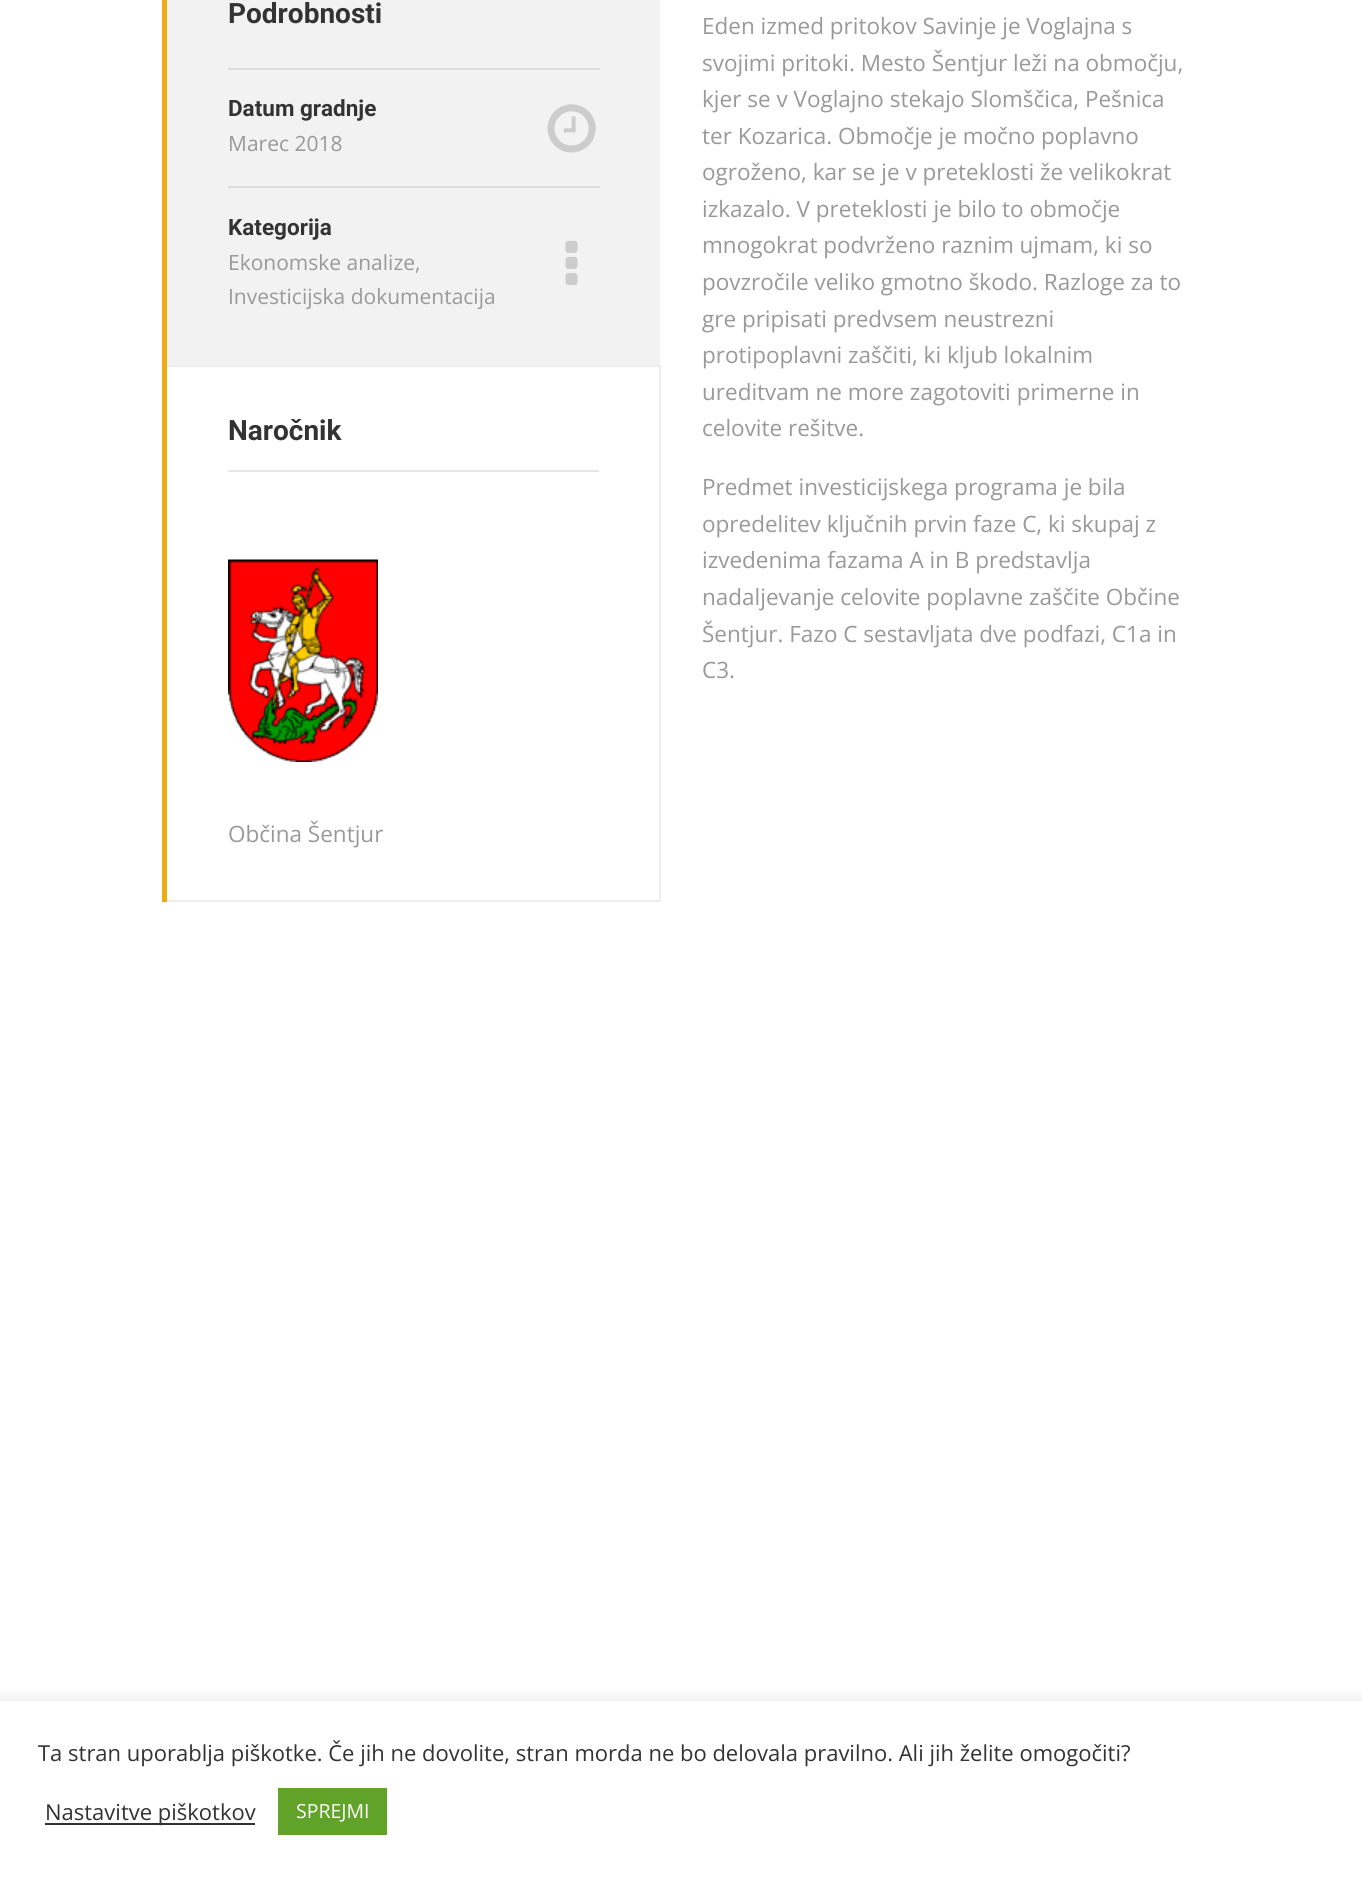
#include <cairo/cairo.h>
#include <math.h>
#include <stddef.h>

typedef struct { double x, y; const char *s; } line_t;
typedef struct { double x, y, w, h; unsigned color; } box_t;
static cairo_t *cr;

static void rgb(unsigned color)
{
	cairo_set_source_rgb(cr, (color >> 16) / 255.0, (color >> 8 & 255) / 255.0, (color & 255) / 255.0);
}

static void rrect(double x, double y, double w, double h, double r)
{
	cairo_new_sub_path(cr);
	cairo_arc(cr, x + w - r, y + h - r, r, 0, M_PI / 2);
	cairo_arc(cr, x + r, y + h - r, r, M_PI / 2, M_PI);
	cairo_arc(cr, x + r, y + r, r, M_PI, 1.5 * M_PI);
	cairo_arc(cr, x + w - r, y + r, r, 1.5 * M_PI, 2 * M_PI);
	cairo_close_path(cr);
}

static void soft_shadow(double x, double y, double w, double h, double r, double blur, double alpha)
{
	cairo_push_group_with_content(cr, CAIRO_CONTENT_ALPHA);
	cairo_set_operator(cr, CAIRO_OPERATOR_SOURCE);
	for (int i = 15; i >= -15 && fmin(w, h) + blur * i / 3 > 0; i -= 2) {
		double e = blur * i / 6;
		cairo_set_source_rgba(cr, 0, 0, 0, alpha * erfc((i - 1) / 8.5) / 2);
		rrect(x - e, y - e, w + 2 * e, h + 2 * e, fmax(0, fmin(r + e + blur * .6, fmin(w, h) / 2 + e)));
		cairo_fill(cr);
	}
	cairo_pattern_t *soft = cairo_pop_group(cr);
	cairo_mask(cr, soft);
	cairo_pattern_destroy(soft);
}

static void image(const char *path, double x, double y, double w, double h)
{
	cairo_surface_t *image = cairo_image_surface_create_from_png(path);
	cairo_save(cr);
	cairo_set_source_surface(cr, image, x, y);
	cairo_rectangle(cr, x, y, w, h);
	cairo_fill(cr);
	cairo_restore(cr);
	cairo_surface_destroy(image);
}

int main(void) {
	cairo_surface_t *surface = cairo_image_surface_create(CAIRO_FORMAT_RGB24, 1362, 1879);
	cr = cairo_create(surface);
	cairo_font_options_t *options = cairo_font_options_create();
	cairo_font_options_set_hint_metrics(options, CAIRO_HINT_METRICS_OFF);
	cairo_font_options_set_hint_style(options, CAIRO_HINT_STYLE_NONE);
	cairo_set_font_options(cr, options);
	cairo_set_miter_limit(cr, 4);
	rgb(0xffffff);
	cairo_paint(cr);
	{
		static const box_t items[] = {
			{162, 0, 5, 902, 0xedac15},
			{167, 0, 493, 365, 0xf2f2f2},
			{228, 68, 372, 2, 0xdddddd},
		};
		for (size_t i = 0; i < sizeof items / sizeof *items; i++) {
			rgb(items[i].color);
			cairo_rectangle(cr, items[i].x, items[i].y, items[i].w, items[i].h);
			cairo_fill(cr);
		}
	}
	image("img/1.png", 547, 104, 49, 49);
	cairo_rectangle(cr, 228, 186, 372, 2);
	cairo_fill(cr);
	image("img/2.png", 565, 240, 13, 45);
	{
		static const box_t items[] = {
			{167, 365, 493, 2, 0xeeeeee},
			{659, 365, 2, 537, 0xeeeeee},
			{167, 900, 493, 2, 0xeeeeee},
			{228, 470, 371, 2, 0xe6e6e6},
		};
		for (size_t i = 0; i < sizeof items / sizeof *items; i++) {
			rgb(items[i].color);
			cairo_rectangle(cr, items[i].x, items[i].y, items[i].w, items[i].h);
			cairo_fill(cr);
		}
	}
	image("img/3.png", 228, 559, 150, 203);
	cairo_save(cr);
	cairo_rectangle(cr, 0, 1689, 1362, 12);
	cairo_clip(cr);
	rgb(0xacabab);
	soft_shadow(0, 1700, 1362, 178, 0, 7.5, 0.3);
	cairo_restore(cr);
	rgb(0x333333);
	cairo_rectangle(cr, 45, 1823, 210, 2);
	cairo_fill(cr);
	rgb(0x61a229);
	cairo_rectangle(cr, 278, 1788, 109, 47);
	cairo_fill(cr);
	cairo_select_font_face(cr, "Roboto", CAIRO_FONT_SLANT_NORMAL, CAIRO_FONT_WEIGHT_BOLD);
	cairo_set_font_size(cr, 28);
	rgb(0x333333);
	cairo_move_to(cr, 228, 23);
	cairo_show_text(cr, "Podrobnosti");
	cairo_set_font_size(cr, 22.5);
	cairo_move_to(cr, 228, 116);
	cairo_show_text(cr, "Datum gradnje");
	cairo_select_font_face(cr, "Open Sans", CAIRO_FONT_SLANT_NORMAL, CAIRO_FONT_WEIGHT_NORMAL);
	cairo_set_font_size(cr, 21);
	rgb(0x999999);
	cairo_move_to(cr, 228, 151);
	cairo_show_text(cr, "Marec 2018");
	cairo_select_font_face(cr, "Roboto", CAIRO_FONT_SLANT_NORMAL, CAIRO_FONT_WEIGHT_BOLD);
	cairo_set_font_size(cr, 22.5);
	rgb(0x333333);
	cairo_move_to(cr, 228, 235);
	cairo_show_text(cr, "Kategorija");
	cairo_select_font_face(cr, "Open Sans", CAIRO_FONT_SLANT_NORMAL, CAIRO_FONT_WEIGHT_NORMAL);
	cairo_set_font_size(cr, 21);
	rgb(0x999999);
	cairo_move_to(cr, 228, 270);
	cairo_show_text(cr, "Ekonomske analize,");
	cairo_move_to(cr, 228, 304);
	cairo_show_text(cr, "Investicijska dokumentacija");
	cairo_select_font_face(cr, "Roboto", CAIRO_FONT_SLANT_NORMAL, CAIRO_FONT_WEIGHT_BOLD);
	cairo_set_font_size(cr, 28);
	rgb(0x333333);
	cairo_move_to(cr, 228, 440);
	cairo_show_text(cr, "Naročnik");
	cairo_select_font_face(cr, "Open Sans", CAIRO_FONT_SLANT_NORMAL, CAIRO_FONT_WEIGHT_NORMAL);
	cairo_set_font_size(cr, 22.5);
	rgb(0x999999);
	{
		static const line_t items[] = {
			{228, 842, "Občina Šentjur"},
			{702, 34, "Eden izmed pritokov Savinje je Voglajna s"},
			{702, 71, "svojimi pritoki. Mesto Šentjur leži na območju,"},
			{702, 107, "kjer se v Voglajno stekajo Slomščica, Pešnica"},
			{702, 144, "ter Kozarica. Območje je močno poplavno"},
			{702, 180, "ogroženo, kar se je v preteklosti že velikokrat"},
			{702, 217, "izkazalo. V preteklosti je bilo to območje"},
			{702, 253, "mnogokrat podvrženo raznim ujmam, ki so"},
			{702, 290, "povzročile veliko gmotno škodo. Razloge za to"},
			{702, 327, "gre pripisati predvsem neustrezni"},
			{702, 363, "protipoplavni zaščiti, ki kljub lokalnim"},
			{702, 400, "ureditvam ne more zagotoviti primerne in"},
			{702, 436, "celovite rešitve."},
			{702, 495, "Predmet investicijskega programa je bila"},
			{702, 532, "opredelitev ključnih prvin faze C, ki skupaj z"},
			{702, 568, "izvedenima fazama A in B predstavlja"},
			{702, 605, "nadaljevanje celovite poplavne zaščite Občine"},
			{702, 642, "Šentjur. Fazo C sestavljata dve podfazi, C1a in"},
			{702, 678, "C3."},
		};
		for (size_t i = 0; i < sizeof items / sizeof *items; i++) {
			cairo_move_to(cr, items[i].x, items[i].y);
			cairo_show_text(cr, items[i].s);
		}
	}
	cairo_set_font_size(cr, 22);
	rgb(0x333333);
	cairo_move_to(cr, 38, 1761);
	cairo_show_text(cr, "Ta stran uporablja piškotke. Če jih ne dovolite, stran morda ne bo delovala pravilno. Ali jih želite omogočiti?");
	cairo_move_to(cr, 45, 1820);
	cairo_show_text(cr, "Nastavitve piškotkov");
	cairo_set_font_size(cr, 19.5);
	rgb(0xffffff);
	cairo_move_to(cr, 296, 1818);
	cairo_show_text(cr, "SPREJMI");
	cairo_surface_write_to_png(surface, "page.png");
	cairo_font_options_destroy(options);
	cairo_destroy(cr);
	cairo_surface_destroy(surface);
	return 0;
}
